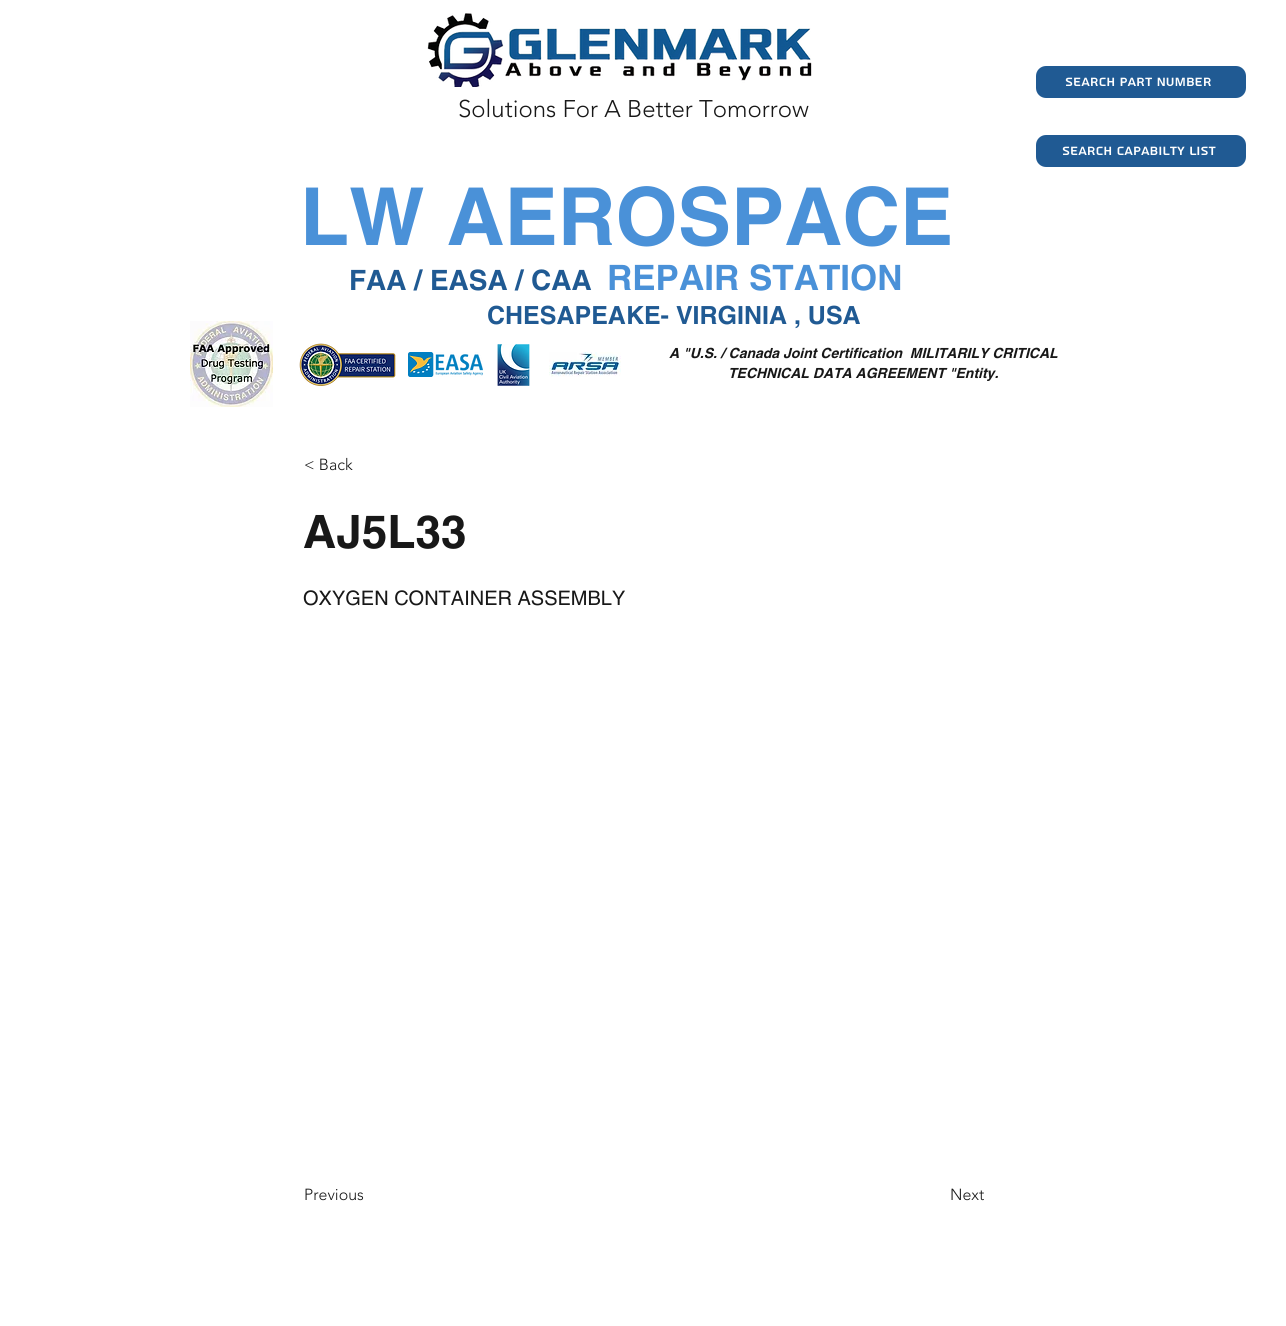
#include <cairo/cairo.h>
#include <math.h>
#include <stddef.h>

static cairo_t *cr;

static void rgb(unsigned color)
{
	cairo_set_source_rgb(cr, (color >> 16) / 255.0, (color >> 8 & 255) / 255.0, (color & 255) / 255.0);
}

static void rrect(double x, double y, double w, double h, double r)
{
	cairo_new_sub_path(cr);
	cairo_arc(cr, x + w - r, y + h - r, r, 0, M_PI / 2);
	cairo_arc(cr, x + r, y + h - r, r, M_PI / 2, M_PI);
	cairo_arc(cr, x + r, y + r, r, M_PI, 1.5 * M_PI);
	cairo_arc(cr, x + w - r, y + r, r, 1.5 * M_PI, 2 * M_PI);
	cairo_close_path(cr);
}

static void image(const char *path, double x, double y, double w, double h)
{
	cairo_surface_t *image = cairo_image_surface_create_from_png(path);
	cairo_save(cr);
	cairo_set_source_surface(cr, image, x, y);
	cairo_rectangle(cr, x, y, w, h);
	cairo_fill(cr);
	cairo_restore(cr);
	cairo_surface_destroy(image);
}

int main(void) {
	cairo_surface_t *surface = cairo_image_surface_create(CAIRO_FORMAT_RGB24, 1286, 1326);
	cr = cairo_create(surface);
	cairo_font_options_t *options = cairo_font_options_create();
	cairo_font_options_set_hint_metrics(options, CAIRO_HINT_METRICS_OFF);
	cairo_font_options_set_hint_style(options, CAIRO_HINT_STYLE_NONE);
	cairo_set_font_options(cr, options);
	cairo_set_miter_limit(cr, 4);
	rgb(0xffffff);
	cairo_paint(cr);
	rgb(0x205a93);
	rrect(1036, 66, 210, 32, 10);
	cairo_fill(cr);
	image("img/1.png", 427, 13, 385, 74);
	rrect(1036, 135, 210, 32, 10);
	cairo_fill(cr);
	image("img/2.png", 190, 321, 83, 86);
	image("img/3.png", 299, 343, 97, 43);
	image("img/4.png", 408, 352, 75, 25);
	image("img/5.png", 497, 344, 33, 42);
	image("img/6.png", 549, 352, 72, 25);
	cairo_select_font_face(cr, "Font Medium", CAIRO_FONT_SLANT_NORMAL, CAIRO_FONT_WEIGHT_NORMAL);
	cairo_set_font_size(cr, 16);
	rgb(0xffffff);
	cairo_move_to(cr, 1065, 86);
	cairo_show_text(cr, "Search Part Number");
	cairo_select_font_face(cr, "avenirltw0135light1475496 Light", CAIRO_FONT_SLANT_NORMAL, CAIRO_FONT_WEIGHT_NORMAL);
	cairo_set_font_size(cr, 24);
	rgb(0x181818);
	cairo_move_to(cr, 458, 117);
	cairo_show_text(cr, "Solutions For A Better Tomorrow");
	cairo_select_font_face(cr, "Font Medium", CAIRO_FONT_SLANT_NORMAL, CAIRO_FONT_WEIGHT_NORMAL);
	cairo_set_font_size(cr, 16);
	rgb(0xffffff);
	cairo_move_to(cr, 1062, 155);
	cairo_show_text(cr, "Search Capabilty List");
	cairo_select_font_face(cr, "helvetica", CAIRO_FONT_SLANT_NORMAL, CAIRO_FONT_WEIGHT_BOLD);
	cairo_set_font_size(cr, 80);
	rgb(0x4a91d8);
	cairo_move_to(cr, 300, 245);
	cairo_show_text(cr, "LW AEROSPACE");
	cairo_set_font_size(cr, 28);
	rgb(0x205a93);
	cairo_move_to(cr, 349, 290);
	cairo_show_text(cr, "FAA / EASA / CAA");
	cairo_set_font_size(cr, 35);
	rgb(0x4a91d8);
	cairo_move_to(cr, 607, 290);
	cairo_show_text(cr, "REPAIR STATION");
	cairo_set_font_size(cr, 25);
	rgb(0x205a93);
	cairo_move_to(cr, 487, 324);
	cairo_show_text(cr, "CHESAPEAKE- VIRGINIA , USA");
	cairo_select_font_face(cr, "helvetica", CAIRO_FONT_SLANT_ITALIC, CAIRO_FONT_WEIGHT_BOLD);
	cairo_set_font_size(cr, 14);
	rgb(0x181818);
	cairo_move_to(cr, 669, 358);
	cairo_show_text(cr, "A \"U.S. / Canada Joint Certification  MILITARILY CRITICAL");
	cairo_move_to(cr, 728, 378);
	cairo_show_text(cr, "TECHNICAL DATA AGREEMENT \"Entity.");
	cairo_select_font_face(cr, "avenirltw0135light1475496 Light", CAIRO_FONT_SLANT_NORMAL, CAIRO_FONT_WEIGHT_NORMAL);
	cairo_set_font_size(cr, 16);
	cairo_move_to(cr, 304, 470);
	cairo_show_text(cr, "< Back");
	cairo_select_font_face(cr, "helvetica", CAIRO_FONT_SLANT_NORMAL, CAIRO_FONT_WEIGHT_BOLD);
	cairo_set_font_size(cr, 46);
	cairo_move_to(cr, 303, 548);
	cairo_show_text(cr, "AJ5L33");
	cairo_select_font_face(cr, "helvetica", CAIRO_FONT_SLANT_NORMAL, CAIRO_FONT_WEIGHT_NORMAL);
	cairo_set_font_size(cr, 20);
	cairo_move_to(cr, 303, 605);
	cairo_show_text(cr, "OXYGEN CONTAINER ASSEMBLY");
	cairo_select_font_face(cr, "avenirltw0135light1475496 Light", CAIRO_FONT_SLANT_NORMAL, CAIRO_FONT_WEIGHT_NORMAL);
	cairo_set_font_size(cr, 16);
	cairo_move_to(cr, 304, 1200);
	cairo_show_text(cr, "Previous");
	cairo_move_to(cr, 950, 1200);
	cairo_show_text(cr, "Next");
	cairo_surface_write_to_png(surface, "page.png");
	cairo_font_options_destroy(options);
	cairo_destroy(cr);
	cairo_surface_destroy(surface);
	return 0;
}
